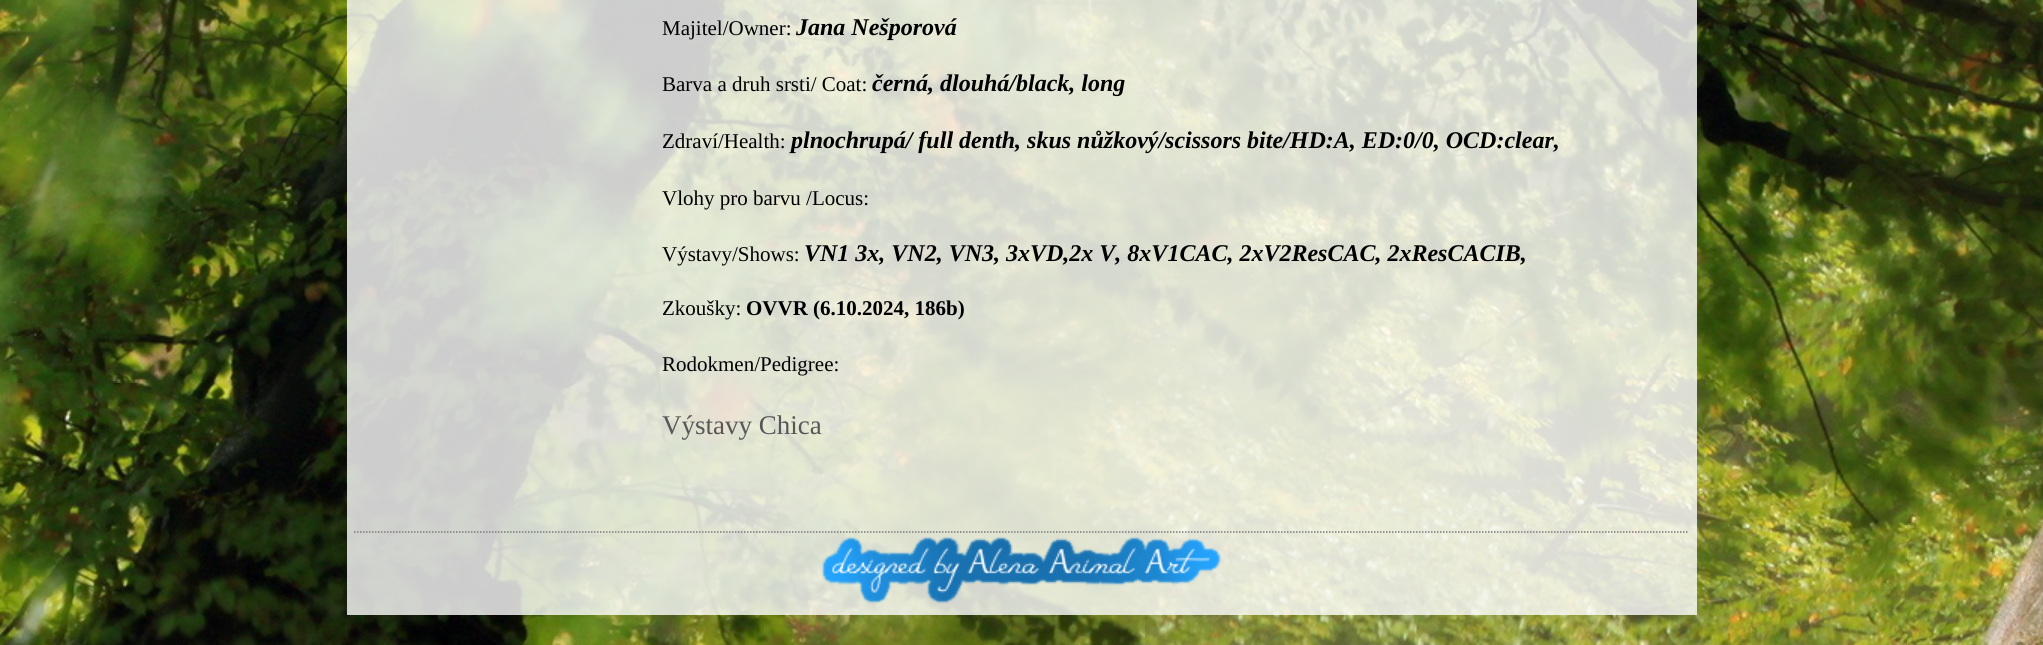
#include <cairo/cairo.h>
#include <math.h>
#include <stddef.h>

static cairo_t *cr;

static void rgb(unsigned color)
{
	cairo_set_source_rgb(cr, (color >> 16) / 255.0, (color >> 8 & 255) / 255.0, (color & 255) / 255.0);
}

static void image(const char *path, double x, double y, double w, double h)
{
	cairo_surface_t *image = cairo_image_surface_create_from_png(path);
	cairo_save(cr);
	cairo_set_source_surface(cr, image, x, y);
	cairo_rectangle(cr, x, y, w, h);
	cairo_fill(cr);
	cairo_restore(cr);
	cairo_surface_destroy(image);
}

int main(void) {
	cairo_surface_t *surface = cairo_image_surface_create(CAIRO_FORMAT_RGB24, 2043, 645);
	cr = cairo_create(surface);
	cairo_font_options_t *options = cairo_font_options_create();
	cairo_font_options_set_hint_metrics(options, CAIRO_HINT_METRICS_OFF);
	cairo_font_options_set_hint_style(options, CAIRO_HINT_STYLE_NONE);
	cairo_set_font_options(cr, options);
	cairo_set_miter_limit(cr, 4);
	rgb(0xffffff);
	cairo_paint(cr);
	image("img/1.png", 0, 0, 2043, 645);
	cairo_set_source_rgba(cr, 1, 1, 1, 0.8);
	cairo_rectangle(cr, 347, 0, 1350, 615);
	cairo_fill(cr);
	image("img/2.png", 822, 536, 400, 68);
	cairo_new_path(cr);
	cairo_move_to(cr, 354, 532);
	cairo_line_to(cr, 1689, 532);
	rgb(0x7a7a7a);
	cairo_set_line_width(cr, 1.5);
	cairo_set_dash(cr, (double[]){1.5, 1.5}, 2, 0);
	cairo_stroke(cr);
	cairo_select_font_face(cr, "Liberation Serif", CAIRO_FONT_SLANT_NORMAL, CAIRO_FONT_WEIGHT_NORMAL);
	cairo_set_font_size(cr, 21);
	rgb(0x000000);
	cairo_move_to(cr, 662, 35);
	cairo_show_text(cr, "Majitel/Owner:");
	cairo_select_font_face(cr, "Liberation Serif", CAIRO_FONT_SLANT_ITALIC, CAIRO_FONT_WEIGHT_BOLD);
	cairo_set_font_size(cr, 24);
	cairo_move_to(cr, 796, 35);
	cairo_show_text(cr, "Jana Nešporová");
	cairo_select_font_face(cr, "Liberation Serif", CAIRO_FONT_SLANT_NORMAL, CAIRO_FONT_WEIGHT_NORMAL);
	cairo_set_font_size(cr, 21);
	cairo_move_to(cr, 662, 91);
	cairo_show_text(cr, "Barva a druh srsti/ Coat:");
	cairo_select_font_face(cr, "Liberation Serif", CAIRO_FONT_SLANT_ITALIC, CAIRO_FONT_WEIGHT_BOLD);
	cairo_set_font_size(cr, 24);
	cairo_move_to(cr, 872, 91);
	cairo_show_text(cr, "černá, dlouhá/black, long");
	cairo_select_font_face(cr, "Liberation Serif", CAIRO_FONT_SLANT_NORMAL, CAIRO_FONT_WEIGHT_NORMAL);
	cairo_set_font_size(cr, 21);
	cairo_move_to(cr, 662, 148);
	cairo_show_text(cr, "Zdraví/Health:");
	cairo_select_font_face(cr, "Liberation Serif", CAIRO_FONT_SLANT_ITALIC, CAIRO_FONT_WEIGHT_BOLD);
	cairo_set_font_size(cr, 24);
	cairo_move_to(cr, 791, 148);
	cairo_show_text(cr, "plnochrupá/ full denth, skus nůžkový/scissors bite/HD:A, ED:0/0, OCD:clear,");
	cairo_select_font_face(cr, "Liberation Serif", CAIRO_FONT_SLANT_NORMAL, CAIRO_FONT_WEIGHT_NORMAL);
	cairo_set_font_size(cr, 21);
	cairo_move_to(cr, 662, 205);
	cairo_show_text(cr, "Vlohy pro barvu /Locus:");
	cairo_move_to(cr, 662, 261);
	cairo_show_text(cr, "Výstavy/Shows:");
	cairo_select_font_face(cr, "Liberation Serif", CAIRO_FONT_SLANT_ITALIC, CAIRO_FONT_WEIGHT_BOLD);
	cairo_set_font_size(cr, 24);
	cairo_move_to(cr, 804, 261);
	cairo_show_text(cr, "VN1 3x, VN2, VN3, 3xVD,2x V, 8xV1CAC, 2xV2ResCAC, 2xResCACIB,");
	cairo_select_font_face(cr, "Liberation Serif", CAIRO_FONT_SLANT_NORMAL, CAIRO_FONT_WEIGHT_NORMAL);
	cairo_set_font_size(cr, 21);
	cairo_move_to(cr, 662, 315);
	cairo_show_text(cr, "Zkoušky:");
	cairo_select_font_face(cr, "Liberation Serif", CAIRO_FONT_SLANT_NORMAL, CAIRO_FONT_WEIGHT_BOLD);
	cairo_move_to(cr, 746, 315);
	cairo_show_text(cr, "OVVR (6.10.2024, 186b)");
	cairo_select_font_face(cr, "Liberation Serif", CAIRO_FONT_SLANT_NORMAL, CAIRO_FONT_WEIGHT_NORMAL);
	cairo_move_to(cr, 662, 371);
	cairo_show_text(cr, "Rodokmen/Pedigree:");
	cairo_set_font_size(cr, 27);
	rgb(0x575757);
	cairo_move_to(cr, 662, 434);
	cairo_show_text(cr, "Výstavy Chica");
	cairo_surface_write_to_png(surface, "page.png");
	cairo_font_options_destroy(options);
	cairo_destroy(cr);
	cairo_surface_destroy(surface);
	return 0;
}
